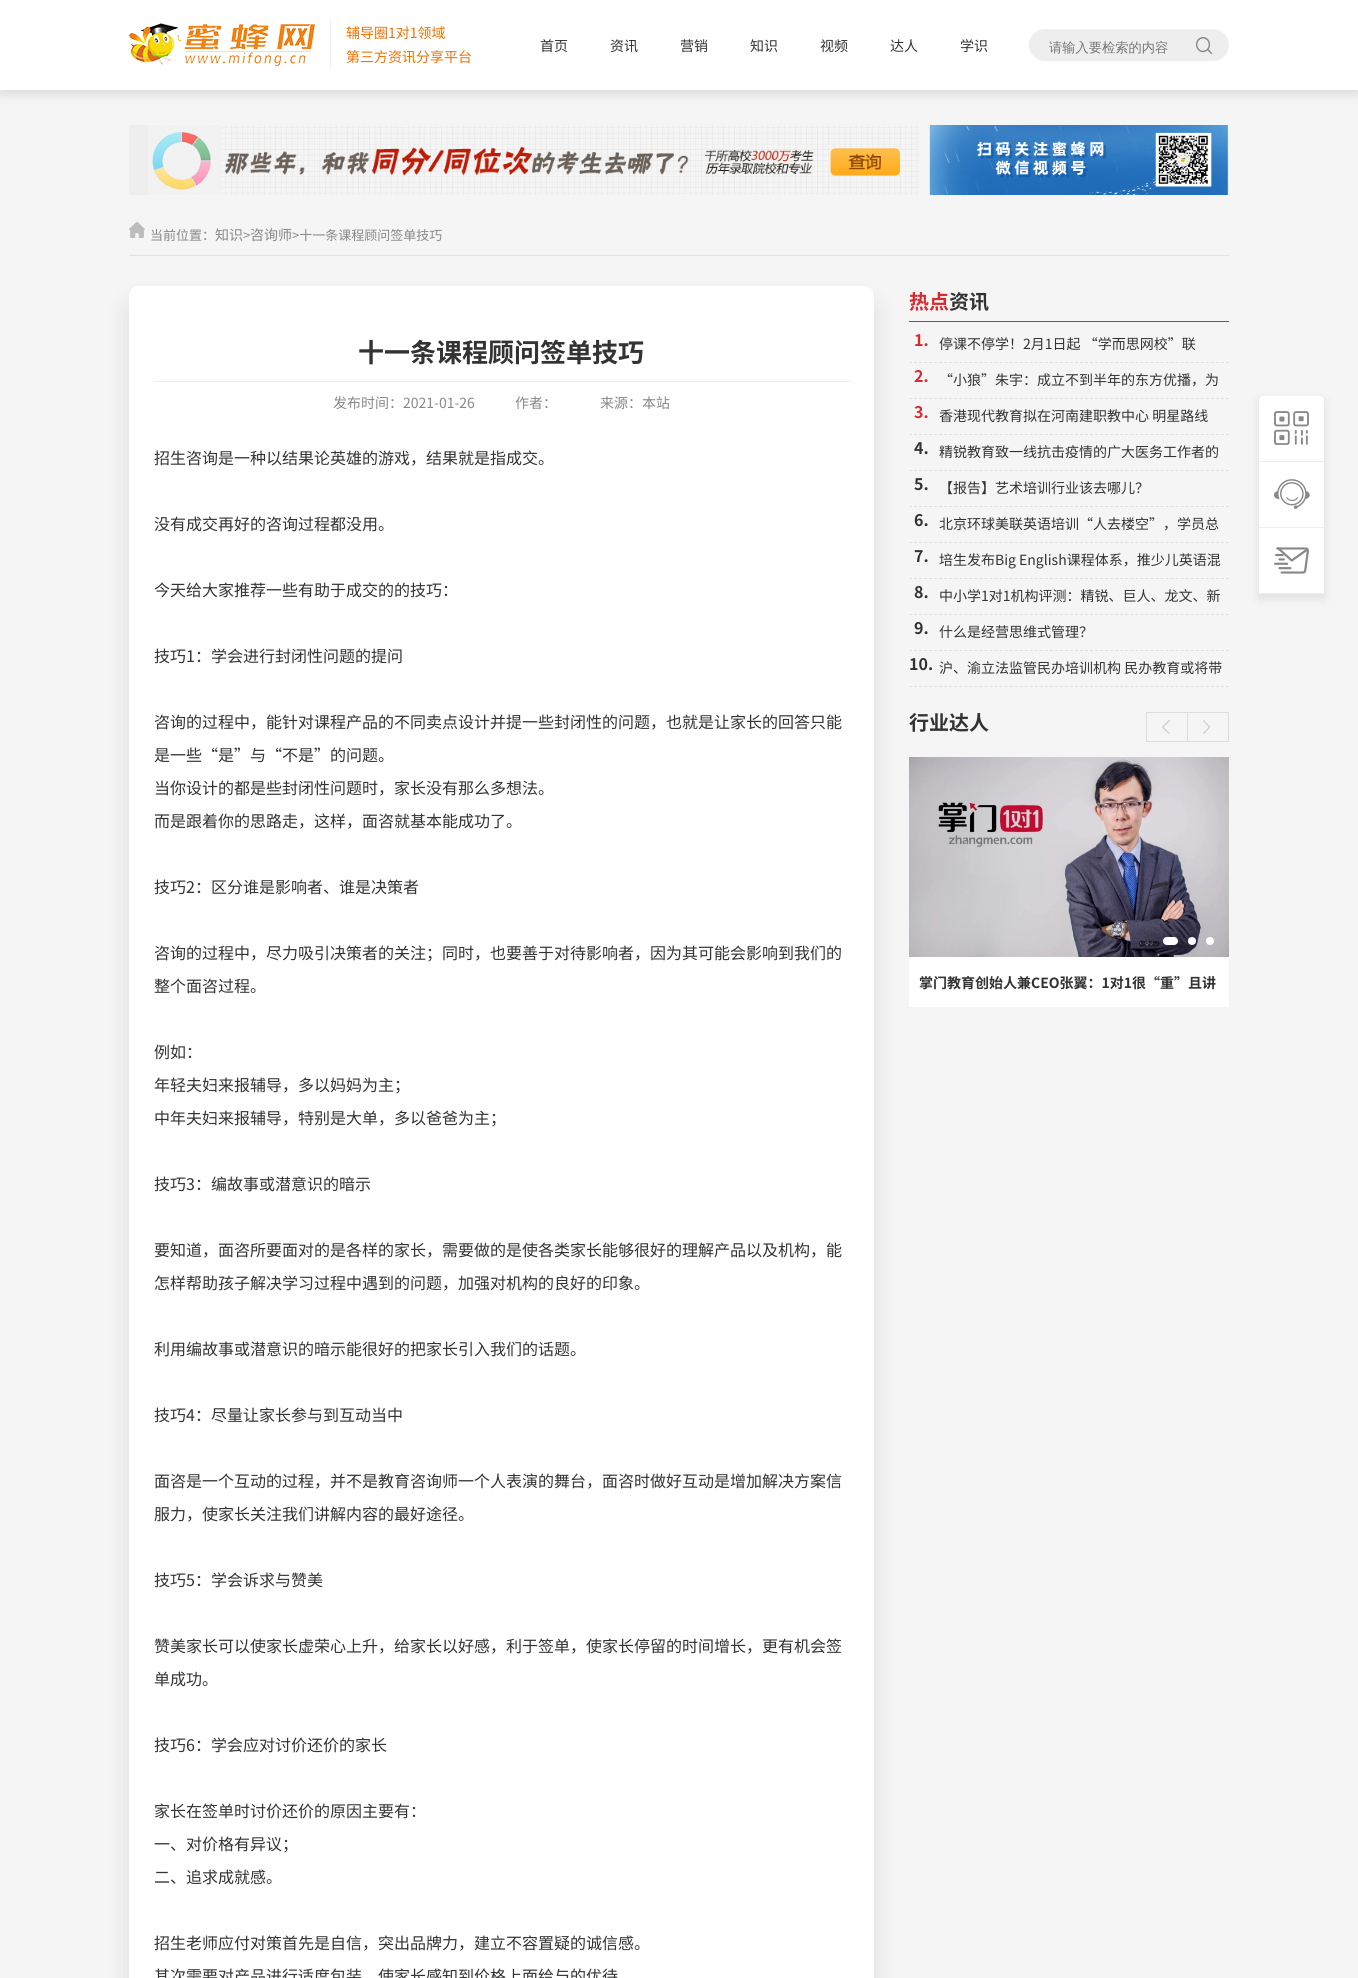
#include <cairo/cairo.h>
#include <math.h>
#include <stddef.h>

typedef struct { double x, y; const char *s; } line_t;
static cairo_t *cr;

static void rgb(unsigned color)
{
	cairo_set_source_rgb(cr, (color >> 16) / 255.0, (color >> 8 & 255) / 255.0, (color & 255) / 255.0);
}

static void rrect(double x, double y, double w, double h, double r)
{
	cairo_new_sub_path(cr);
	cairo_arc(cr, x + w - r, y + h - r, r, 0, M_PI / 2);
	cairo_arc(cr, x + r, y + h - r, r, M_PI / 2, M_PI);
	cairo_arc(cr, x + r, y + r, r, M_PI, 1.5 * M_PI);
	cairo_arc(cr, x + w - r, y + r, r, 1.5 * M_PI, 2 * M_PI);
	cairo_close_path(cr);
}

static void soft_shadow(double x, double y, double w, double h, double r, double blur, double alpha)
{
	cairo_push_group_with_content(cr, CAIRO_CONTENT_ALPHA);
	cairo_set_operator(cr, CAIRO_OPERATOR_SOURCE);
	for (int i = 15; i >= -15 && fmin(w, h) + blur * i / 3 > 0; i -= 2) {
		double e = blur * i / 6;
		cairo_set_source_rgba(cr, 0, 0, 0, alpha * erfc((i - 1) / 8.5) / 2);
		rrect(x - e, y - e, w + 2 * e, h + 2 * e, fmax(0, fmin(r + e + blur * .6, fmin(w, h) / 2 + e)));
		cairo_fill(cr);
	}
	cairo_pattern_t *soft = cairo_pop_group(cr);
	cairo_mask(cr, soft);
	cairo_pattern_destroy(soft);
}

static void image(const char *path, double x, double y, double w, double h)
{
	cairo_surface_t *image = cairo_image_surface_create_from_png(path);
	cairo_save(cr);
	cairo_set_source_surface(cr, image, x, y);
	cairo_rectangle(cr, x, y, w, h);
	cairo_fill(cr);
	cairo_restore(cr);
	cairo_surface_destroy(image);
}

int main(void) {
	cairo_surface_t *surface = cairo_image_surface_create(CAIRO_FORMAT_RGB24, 1358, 1978);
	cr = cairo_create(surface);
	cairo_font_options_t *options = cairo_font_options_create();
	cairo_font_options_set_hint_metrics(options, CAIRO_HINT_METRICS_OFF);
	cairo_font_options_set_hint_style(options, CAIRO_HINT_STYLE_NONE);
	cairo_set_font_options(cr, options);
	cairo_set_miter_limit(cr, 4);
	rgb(0xf5f5f5);
	cairo_paint(cr);
	rgb(0x000000);
	soft_shadow(0, 5, 1358, 90, 0, 5, 0.1);
	rgb(0xffffff);
	cairo_rectangle(cr, 0, 0, 1358, 90);
	cairo_fill(cr);
	image("img/1.png", 129, 23, 186, 43);
	rgb(0xeeeeee);
	cairo_rectangle(cr, 330, 20, 1, 48);
	cairo_fill(cr);
	rrect(1029, 29, 200, 32, 16);
	cairo_fill(cr);
	image("img/2.png", 1196, 37, 16, 17);
	cairo_rectangle(cr, 129, 125, 19, 70);
	cairo_fill(cr);
	image("img/3.png", 148, 125, 771, 70);
	image("img/4.png", 929, 125, 300, 70);
	rgb(0xe2e2e2);
	cairo_rectangle(cr, 129, 255, 1100, 1);
	cairo_fill(cr);
	image("img/5.png", 129, 222, 16, 16);
	rgb(0x000000);
	soft_shadow(129, 301, 745, 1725, 10, 12.5, 0.1);
	rgb(0xffffff);
	rrect(129, 286, 745, 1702, 10);
	cairo_fill(cr);
	rgb(0xeeeeee);
	cairo_rectangle(cr, 154, 381, 695, 1);
	cairo_fill(cr);
	rgb(0xd82b30);
	cairo_rectangle(cr, 909, 321, 320, 1);
	cairo_fill(cr);
	cairo_new_path(cr);
	cairo_move_to(cr, 909, 362.5);
	cairo_line_to(cr, 1229, 362.5);
	rgb(0xe0e0e0);
	cairo_set_line_width(cr, 1);
	cairo_set_dash(cr, (double[]){3, 2.03}, 2, 0);
	cairo_stroke(cr);
	cairo_new_path(cr);
	cairo_move_to(cr, 909, 398.5);
	cairo_line_to(cr, 1229, 398.5);
	cairo_stroke(cr);
	cairo_new_path(cr);
	cairo_move_to(cr, 909, 434.5);
	cairo_line_to(cr, 1229, 434.5);
	cairo_stroke(cr);
	cairo_new_path(cr);
	cairo_move_to(cr, 909, 470.5);
	cairo_line_to(cr, 1229, 470.5);
	cairo_stroke(cr);
	cairo_new_path(cr);
	cairo_move_to(cr, 909, 506.5);
	cairo_line_to(cr, 1229, 506.5);
	cairo_stroke(cr);
	cairo_new_path(cr);
	cairo_move_to(cr, 909, 542.5);
	cairo_line_to(cr, 1229, 542.5);
	cairo_stroke(cr);
	cairo_new_path(cr);
	cairo_move_to(cr, 909, 578.5);
	cairo_line_to(cr, 1229, 578.5);
	cairo_stroke(cr);
	cairo_new_path(cr);
	cairo_move_to(cr, 909, 614.5);
	cairo_line_to(cr, 1229, 614.5);
	cairo_stroke(cr);
	cairo_new_path(cr);
	cairo_move_to(cr, 909, 650.5);
	cairo_line_to(cr, 1229, 650.5);
	cairo_stroke(cr);
	cairo_new_path(cr);
	cairo_move_to(cr, 909, 686.5);
	cairo_line_to(cr, 1229, 686.5);
	cairo_stroke(cr);
	rgb(0xffffff);
	cairo_rectangle(cr, 909, 957, 320, 50);
	cairo_fill(cr);
	image("img/6.png", 1162, 720, 8, 14);
	image("img/7.png", 1203, 720, 7, 14);
	cairo_rectangle(cr, 1187.5, 712.5, 41, 29);
	rgb(0xdddddd);
	cairo_set_dash(cr, NULL, 0, 0);
	cairo_stroke(cr);
	cairo_rectangle(cr, 1146.5, 712.5, 41, 29);
	cairo_stroke(cr);
	image("img/8.png", 909, 757, 320, 200);
	rgb(0xffffff);
	rrect(1163, 937, 15, 8, 4);
	cairo_fill(cr);
	cairo_arc(cr, 1192, 941, 4, 0, 2 * M_PI);
	cairo_fill(cr);
	cairo_arc(cr, 1210, 941, 4, 0, 2 * M_PI);
	cairo_fill(cr);
	rgb(0x000000);
	soft_shadow(1259, 401, 65, 197, 0, 5, 0.1);
	rgb(0xffffff);
	cairo_new_path(cr);
	cairo_move_to(cr, 1264, 396);
	cairo_line_to(cr, 1319, 396);
	cairo_curve_to(cr, 1322, 396, 1324, 398, 1324, 401);
	cairo_line_to(cr, 1324, 462);
	cairo_line_to(cr, 1259, 462);
	cairo_line_to(cr, 1259, 401);
	cairo_curve_to(cr, 1259, 398, 1261, 396, 1264, 396);
	cairo_close_path(cr);
	cairo_fill(cr);
	image("img/9.png", 1274, 411, 35, 34);
	rgb(0xeeeeee);
	cairo_rectangle(cr, 1259, 461, 65, 1);
	cairo_fill(cr);
	rgb(0xffffff);
	cairo_rectangle(cr, 1259, 462, 65, 65);
	cairo_fill(cr);
	image("img/10.png", 1274, 479, 36, 30);
	rgb(0xeeeeee);
	cairo_rectangle(cr, 1259, 527, 65, 1);
	cairo_fill(cr);
	rgb(0xffffff);
	cairo_rectangle(cr, 1259, 528, 65, 65);
	cairo_fill(cr);
	image("img/11.png", 1274, 547, 35, 27);
	rgb(0xeeeeee);
	cairo_rectangle(cr, 1259, 593, 65, 1);
	cairo_fill(cr);
	cairo_select_font_face(cr, "Noto Sans CJK SC", CAIRO_FONT_SLANT_NORMAL, CAIRO_FONT_WEIGHT_NORMAL);
	cairo_set_font_size(cr, 14);
	rgb(0xee7100);
	cairo_move_to(cr, 346, 38);
	cairo_show_text(cr, "辅导圈1对1领域");
	cairo_move_to(cr, 346, 62);
	cairo_show_text(cr, "第三方资讯分享平台");
	rgb(0x333333);
	{
		static const line_t items[] = {
			{540, 51, "首页"},
			{610, 51, "资讯"},
			{680, 51, "营销"},
			{750, 51, "知识"},
			{820, 51, "视频"},
			{890, 51, "达人"},
			{960, 51, "学识"},
		};
		for (size_t i = 0; i < sizeof items / sizeof *items; i++) {
			cairo_move_to(cr, items[i].x, items[i].y);
			cairo_show_text(cr, items[i].s);
		}
	}
	cairo_select_font_face(cr, "WenQuanYi Zen Hei Medium", CAIRO_FONT_SLANT_NORMAL, CAIRO_FONT_WEIGHT_NORMAL);
	cairo_set_font_size(cr, 13.25);
	rgb(0x757575);
	cairo_move_to(cr, 1049, 52);
	cairo_show_text(cr, "请输入要检索的内容");
	cairo_select_font_face(cr, "Noto Sans CJK SC", CAIRO_FONT_SLANT_NORMAL, CAIRO_FONT_WEIGHT_NORMAL);
	cairo_set_font_size(cr, 13);
	rgb(0x888888);
	cairo_move_to(cr, 150, 240);
	cairo_show_text(cr, "当前位置：");
	cairo_set_font_size(cr, 14);
	cairo_move_to(cr, 215, 240);
	cairo_show_text(cr, "知识");
	cairo_set_font_size(cr, 13);
	cairo_move_to(cr, 243, 240);
	cairo_show_text(cr, ">");
	cairo_set_font_size(cr, 14);
	cairo_move_to(cr, 250, 240);
	cairo_show_text(cr, "咨询师");
	cairo_set_font_size(cr, 13);
	cairo_move_to(cr, 292, 240);
	cairo_show_text(cr, ">十一条课程顾问签单技巧");
	cairo_select_font_face(cr, "Noto Sans CJK SC", CAIRO_FONT_SLANT_NORMAL, CAIRO_FONT_WEIGHT_BOLD);
	cairo_set_font_size(cr, 26);
	rgb(0x333333);
	cairo_move_to(cr, 358, 362);
	cairo_show_text(cr, "十一条课程顾问签单技巧");
	cairo_select_font_face(cr, "Noto Sans CJK SC", CAIRO_FONT_SLANT_NORMAL, CAIRO_FONT_WEIGHT_NORMAL);
	cairo_set_font_size(cr, 14);
	rgb(0x888888);
	{
		static const line_t items[] = {
			{333, 408, "发布时间：2021-01-26"},
			{515, 408, "作者："},
			{600, 408, "来源：本站"},
		};
		for (size_t i = 0; i < sizeof items / sizeof *items; i++) {
			cairo_move_to(cr, items[i].x, items[i].y);
			cairo_show_text(cr, items[i].s);
		}
	}
	cairo_set_font_size(cr, 16);
	rgb(0x333333);
	{
		static const line_t items[] = {
			{154, 464, "招生咨询是一种以结果论英雄的游戏，结果就是指成交。"},
			{154, 530, "没有成交再好的咨询过程都没用。"},
			{154, 596, "今天给大家推荐一些有助于成交的的技巧："},
			{154, 662, "技巧1：学会进行封闭性问题的提问"},
			{154, 728, "咨询的过程中，能针对课程产品的不同卖点设计并提一些封闭性的问题，也就是让家长的回答只能"},
			{154, 761, "是一些“是”与“不是”的问题。"},
			{154, 794, "当你设计的都是些封闭性问题时，家长没有那么多想法。"},
			{154, 827, "而是跟着你的思路走，这样，面咨就基本能成功了。"},
			{154, 893, "技巧2：区分谁是影响者、谁是决策者"},
			{154, 959, "咨询的过程中，尽力吸引决策者的关注；同时，也要善于对待影响者，因为其可能会影响到我们的"},
			{154, 992, "整个面咨过程。"},
			{154, 1058, "例如："},
			{154, 1091, "年轻夫妇来报辅导，多以妈妈为主；"},
			{154, 1124, "中年夫妇来报辅导，特别是大单，多以爸爸为主；"},
			{154, 1190, "技巧3：编故事或潜意识的暗示"},
			{154, 1256, "要知道，面咨所要面对的是各样的家长，需要做的是使各类家长能够很好的理解产品以及机构，能"},
			{154, 1289, "怎样帮助孩子解决学习过程中遇到的问题，加强对机构的良好的印象。"},
			{154, 1355, "利用编故事或潜意识的暗示能很好的把家长引入我们的话题。"},
			{154, 1421, "技巧4：尽量让家长参与到互动当中"},
			{154, 1487, "面咨是一个互动的过程，并不是教育咨询师一个人表演的舞台，面咨时做好互动是增加解决方案信"},
			{154, 1520, "服力，使家长关注我们讲解内容的最好途径。"},
			{154, 1586, "技巧5：学会诉求与赞美"},
			{154, 1652, "赞美家长可以使家长虚荣心上升，给家长以好感，利于签单，使家长停留的时间增长，更有机会签"},
			{154, 1685, "单成功。"},
			{154, 1751, "技巧6：学会应对讨价还价的家长"},
			{154, 1817, "家长在签单时讨价还价的原因主要有："},
			{154, 1850, "一、对价格有异议；"},
			{154, 1883, "二、追求成就感。"},
			{154, 1949, "招生老师应付对策首先是自信，突出品牌力，建立不容置疑的诚信感。"},
			{154, 1982, "其次需要对产品进行适度包装，使家长感知到价格上面给与的优待"},
		};
		for (size_t i = 0; i < sizeof items / sizeof *items; i++) {
			cairo_move_to(cr, items[i].x, items[i].y);
			cairo_show_text(cr, items[i].s);
		}
	}
	cairo_select_font_face(cr, "Noto Sans CJK SC", CAIRO_FONT_SLANT_NORMAL, CAIRO_FONT_WEIGHT_BOLD);
	cairo_set_font_size(cr, 20);
	rgb(0xd82b30);
	cairo_move_to(cr, 909, 309);
	cairo_show_text(cr, "热点");
	rgb(0x333333);
	cairo_move_to(cr, 949, 309);
	cairo_show_text(cr, "资讯");
	cairo_set_font_size(cr, 16);
	rgb(0xd82b30);
	cairo_move_to(cr, 914, 346);
	cairo_show_text(cr, "1.");
	cairo_select_font_face(cr, "Noto Sans CJK SC", CAIRO_FONT_SLANT_NORMAL, CAIRO_FONT_WEIGHT_NORMAL);
	cairo_set_font_size(cr, 14);
	rgb(0x333333);
	cairo_move_to(cr, 939, 349);
	cairo_show_text(cr, "停课不停学！2月1日起 “学而思网校”联");
	cairo_select_font_face(cr, "Noto Sans CJK SC", CAIRO_FONT_SLANT_NORMAL, CAIRO_FONT_WEIGHT_BOLD);
	cairo_set_font_size(cr, 16);
	rgb(0xd82b30);
	cairo_move_to(cr, 914, 382);
	cairo_show_text(cr, "2.");
	cairo_select_font_face(cr, "Noto Sans CJK SC", CAIRO_FONT_SLANT_NORMAL, CAIRO_FONT_WEIGHT_NORMAL);
	cairo_set_font_size(cr, 14);
	rgb(0x333333);
	cairo_move_to(cr, 939, 385);
	cairo_show_text(cr, "“小狼”朱宇：成立不到半年的东方优播，为");
	cairo_select_font_face(cr, "Noto Sans CJK SC", CAIRO_FONT_SLANT_NORMAL, CAIRO_FONT_WEIGHT_BOLD);
	cairo_set_font_size(cr, 16);
	rgb(0xd82b30);
	cairo_move_to(cr, 914, 418);
	cairo_show_text(cr, "3.");
	cairo_select_font_face(cr, "Noto Sans CJK SC", CAIRO_FONT_SLANT_NORMAL, CAIRO_FONT_WEIGHT_NORMAL);
	cairo_set_font_size(cr, 14);
	rgb(0x333333);
	cairo_move_to(cr, 939, 421);
	cairo_show_text(cr, "香港现代教育拟在河南建职教中心 明星路线");
	cairo_select_font_face(cr, "Noto Sans CJK SC", CAIRO_FONT_SLANT_NORMAL, CAIRO_FONT_WEIGHT_BOLD);
	cairo_set_font_size(cr, 16);
	cairo_move_to(cr, 914, 454);
	cairo_show_text(cr, "4.");
	cairo_select_font_face(cr, "Noto Sans CJK SC", CAIRO_FONT_SLANT_NORMAL, CAIRO_FONT_WEIGHT_NORMAL);
	cairo_set_font_size(cr, 14);
	cairo_move_to(cr, 939, 457);
	cairo_show_text(cr, "精锐教育致一线抗击疫情的广大医务工作者的");
	cairo_select_font_face(cr, "Noto Sans CJK SC", CAIRO_FONT_SLANT_NORMAL, CAIRO_FONT_WEIGHT_BOLD);
	cairo_set_font_size(cr, 16);
	cairo_move_to(cr, 914, 490);
	cairo_show_text(cr, "5.");
	cairo_select_font_face(cr, "Noto Sans CJK SC", CAIRO_FONT_SLANT_NORMAL, CAIRO_FONT_WEIGHT_NORMAL);
	cairo_set_font_size(cr, 14);
	cairo_move_to(cr, 939, 493);
	cairo_show_text(cr, "【报告】艺术培训行业该去哪儿？");
	cairo_select_font_face(cr, "Noto Sans CJK SC", CAIRO_FONT_SLANT_NORMAL, CAIRO_FONT_WEIGHT_BOLD);
	cairo_set_font_size(cr, 16);
	cairo_move_to(cr, 914, 526);
	cairo_show_text(cr, "6.");
	cairo_select_font_face(cr, "Noto Sans CJK SC", CAIRO_FONT_SLANT_NORMAL, CAIRO_FONT_WEIGHT_NORMAL);
	cairo_set_font_size(cr, 14);
	cairo_move_to(cr, 939, 529);
	cairo_show_text(cr, "北京环球美联英语培训“人去楼空”，学员总");
	cairo_select_font_face(cr, "Noto Sans CJK SC", CAIRO_FONT_SLANT_NORMAL, CAIRO_FONT_WEIGHT_BOLD);
	cairo_set_font_size(cr, 16);
	cairo_move_to(cr, 914, 562);
	cairo_show_text(cr, "7.");
	cairo_select_font_face(cr, "Noto Sans CJK SC", CAIRO_FONT_SLANT_NORMAL, CAIRO_FONT_WEIGHT_NORMAL);
	cairo_set_font_size(cr, 14);
	cairo_move_to(cr, 939, 565);
	cairo_show_text(cr, "培生发布Big English课程体系，推少儿英语混");
	cairo_select_font_face(cr, "Noto Sans CJK SC", CAIRO_FONT_SLANT_NORMAL, CAIRO_FONT_WEIGHT_BOLD);
	cairo_set_font_size(cr, 16);
	cairo_move_to(cr, 914, 598);
	cairo_show_text(cr, "8.");
	cairo_select_font_face(cr, "Noto Sans CJK SC", CAIRO_FONT_SLANT_NORMAL, CAIRO_FONT_WEIGHT_NORMAL);
	cairo_set_font_size(cr, 14);
	cairo_move_to(cr, 939, 601);
	cairo_show_text(cr, "中小学1对1机构评测：精锐、巨人、龙文、新");
	cairo_select_font_face(cr, "Noto Sans CJK SC", CAIRO_FONT_SLANT_NORMAL, CAIRO_FONT_WEIGHT_BOLD);
	cairo_set_font_size(cr, 16);
	cairo_move_to(cr, 914, 634);
	cairo_show_text(cr, "9.");
	cairo_select_font_face(cr, "Noto Sans CJK SC", CAIRO_FONT_SLANT_NORMAL, CAIRO_FONT_WEIGHT_NORMAL);
	cairo_set_font_size(cr, 14);
	cairo_move_to(cr, 939, 637);
	cairo_show_text(cr, "什么是经营思维式管理？");
	cairo_select_font_face(cr, "Noto Sans CJK SC", CAIRO_FONT_SLANT_NORMAL, CAIRO_FONT_WEIGHT_BOLD);
	cairo_set_font_size(cr, 16);
	cairo_move_to(cr, 909, 670);
	cairo_show_text(cr, "10.");
	cairo_select_font_face(cr, "Noto Sans CJK SC", CAIRO_FONT_SLANT_NORMAL, CAIRO_FONT_WEIGHT_NORMAL);
	cairo_set_font_size(cr, 14);
	cairo_move_to(cr, 939, 673);
	cairo_show_text(cr, "沪、渝立法监管民办培训机构 民办教育或将带");
	cairo_select_font_face(cr, "Noto Sans CJK SC", CAIRO_FONT_SLANT_NORMAL, CAIRO_FONT_WEIGHT_BOLD);
	cairo_set_font_size(cr, 20);
	cairo_move_to(cr, 909, 730);
	cairo_show_text(cr, "行业达人");
	cairo_set_font_size(cr, 14);
	cairo_move_to(cr, 919, 988);
	cairo_show_text(cr, "掌门教育创始人兼CEO张翼：1对1很“重”且讲");
	cairo_surface_write_to_png(surface, "page.png");
	cairo_font_options_destroy(options);
	cairo_destroy(cr);
	cairo_surface_destroy(surface);
	return 0;
}
